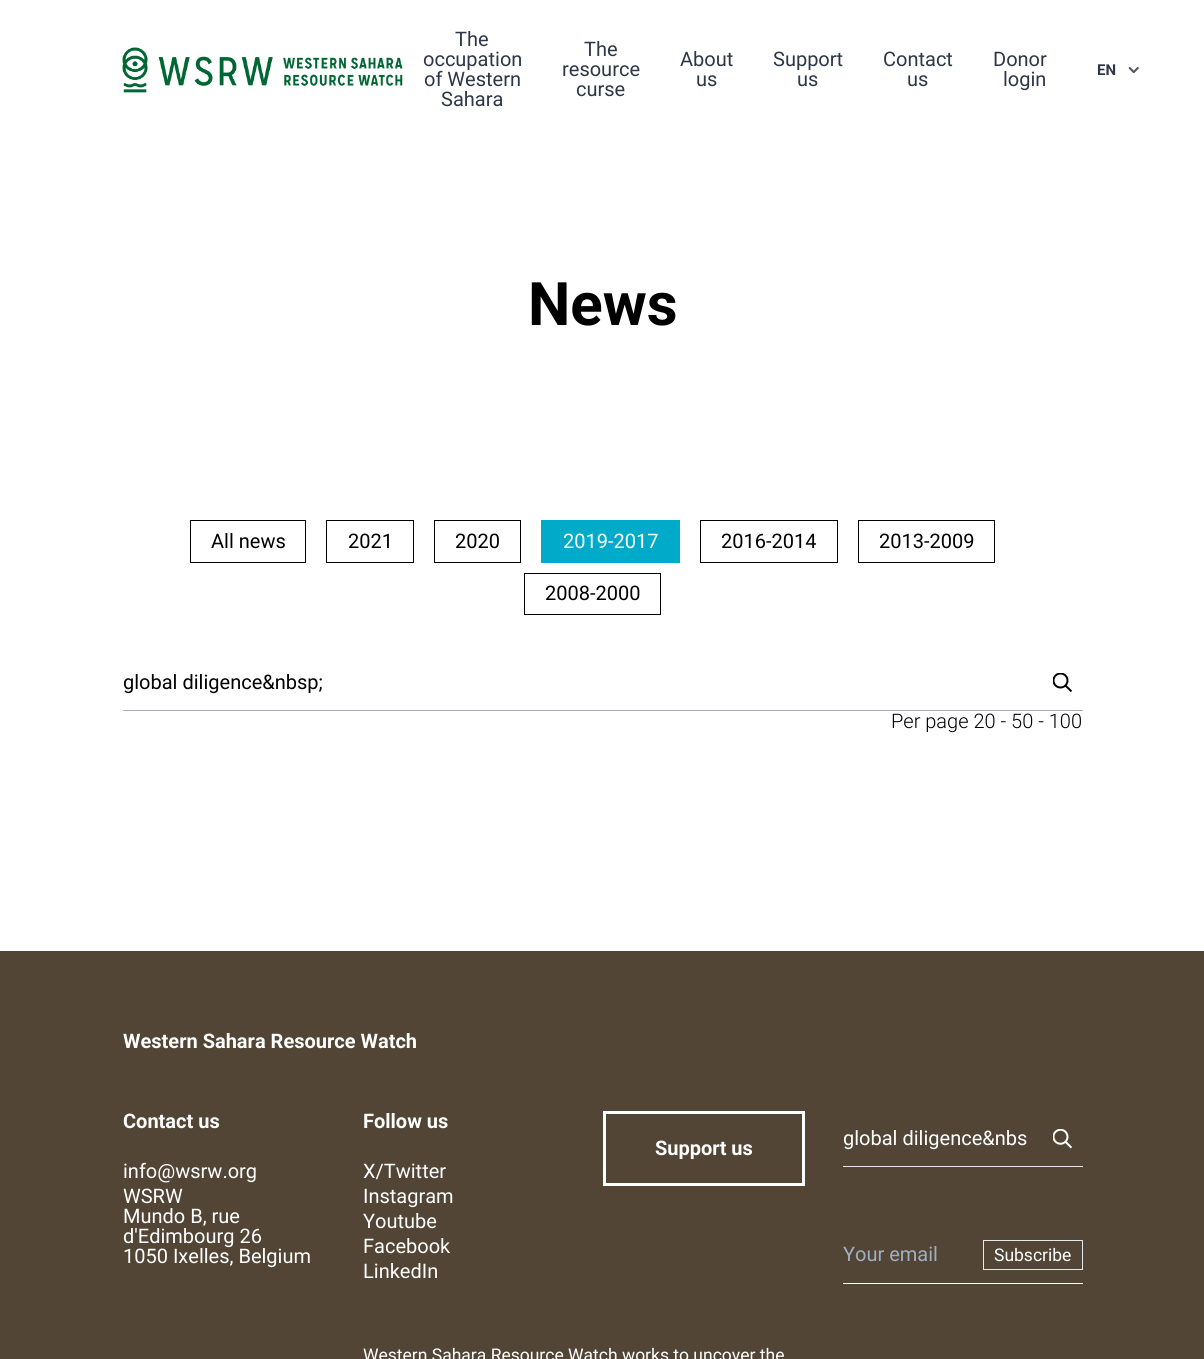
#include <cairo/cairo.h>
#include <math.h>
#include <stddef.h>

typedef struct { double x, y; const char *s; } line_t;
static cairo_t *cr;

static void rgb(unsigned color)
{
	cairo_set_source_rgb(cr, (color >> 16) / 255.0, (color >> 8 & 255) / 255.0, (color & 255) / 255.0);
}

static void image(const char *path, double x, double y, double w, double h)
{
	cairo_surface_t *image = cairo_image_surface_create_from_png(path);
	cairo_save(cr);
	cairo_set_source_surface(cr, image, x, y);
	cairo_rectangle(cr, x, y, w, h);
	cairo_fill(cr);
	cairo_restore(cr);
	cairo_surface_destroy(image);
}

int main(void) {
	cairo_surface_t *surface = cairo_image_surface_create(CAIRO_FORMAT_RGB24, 1204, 1359);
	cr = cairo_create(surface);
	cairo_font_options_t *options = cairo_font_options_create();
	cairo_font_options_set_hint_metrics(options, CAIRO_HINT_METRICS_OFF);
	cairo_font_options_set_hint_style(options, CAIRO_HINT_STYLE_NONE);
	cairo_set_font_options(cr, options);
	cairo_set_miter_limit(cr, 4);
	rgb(0xffffff);
	cairo_paint(cr);
	image("img/1.png", 122, 47, 281, 46);
	image("img/2.png", 1128, 67, 11, 7);
	cairo_rectangle(cr, 190.5, 520.5, 115, 42);
	rgb(0x000000);
	cairo_set_line_width(cr, 1);
	cairo_stroke(cr);
	cairo_rectangle(cr, 326.5, 520.5, 87, 42);
	cairo_stroke(cr);
	cairo_rectangle(cr, 434.5, 520.5, 86, 42);
	cairo_stroke(cr);
	rgb(0x00abc9);
	cairo_rectangle(cr, 541, 520, 139, 43);
	cairo_fill(cr);
	cairo_rectangle(cr, 700.5, 520.5, 137, 42);
	rgb(0x000000);
	cairo_stroke(cr);
	cairo_rectangle(cr, 858.5, 520.5, 136, 42);
	cairo_stroke(cr);
	cairo_rectangle(cr, 524.5, 573.5, 136, 41);
	cairo_stroke(cr);
	rgb(0xa0aec0);
	cairo_rectangle(cr, 123, 710, 960, 1);
	cairo_fill(cr);
	image("img/3.png", 1053, 673, 20, 20);
	rgb(0x524536);
	cairo_rectangle(cr, 0, 951, 1204, 408);
	cairo_fill(cr);
	cairo_rectangle(cr, 604.5, 1112.5, 199, 72);
	rgb(0xffffff);
	cairo_set_line_width(cr, 3);
	cairo_stroke(cr);
	rgb(0xe2e8f0);
	cairo_rectangle(cr, 843, 1166, 240, 1);
	cairo_fill(cr);
	image("img/4.png", 1053, 1129, 19, 20);
	rgb(0xffffff);
	cairo_rectangle(cr, 843, 1283, 240, 1);
	cairo_fill(cr);
	cairo_rectangle(cr, 983.5, 1240.5, 99, 29);
	rgb(0xe2e8f0);
	cairo_set_line_width(cr, 1);
	cairo_stroke(cr);
	cairo_select_font_face(cr, "Roboto", CAIRO_FONT_SLANT_NORMAL, CAIRO_FONT_WEIGHT_NORMAL);
	cairo_set_font_size(cr, 20);
	rgb(0x2d3748);
	{
		static const line_t items[] = {
			{455, 46, "The"},
			{423, 66, "occupation"},
			{424, 86, "of Western"},
			{441, 106, "Sahara"},
			{584, 56, "The"},
			{562, 76, "resource"},
			{576, 96, "curse"},
			{680, 66, "About"},
			{696, 86, "us"},
			{773, 66, "Support"},
			{797, 86, "us"},
			{883, 66, "Contact"},
			{907, 86, "us"},
			{993, 66, "Donor"},
			{1003, 86, "login"},
		};
		for (size_t i = 0; i < sizeof items / sizeof *items; i++) {
			cairo_move_to(cr, items[i].x, items[i].y);
			cairo_show_text(cr, items[i].s);
		}
	}
	cairo_select_font_face(cr, "Roboto", CAIRO_FONT_SLANT_NORMAL, CAIRO_FONT_WEIGHT_BOLD);
	cairo_set_font_size(cr, 15);
	cairo_move_to(cr, 1097, 75);
	cairo_show_text(cr, "EN");
	cairo_set_font_size(cr, 60);
	rgb(0x000000);
	cairo_move_to(cr, 528, 325);
	cairo_show_text(cr, "News");
	cairo_select_font_face(cr, "Roboto", CAIRO_FONT_SLANT_NORMAL, CAIRO_FONT_WEIGHT_NORMAL);
	cairo_set_font_size(cr, 20);
	{
		static const line_t items[] = {
			{211, 548, "All news"},
			{348, 548, "2021"},
			{455, 548, "2020"},
		};
		for (size_t i = 0; i < sizeof items / sizeof *items; i++) {
			cairo_move_to(cr, items[i].x, items[i].y);
			cairo_show_text(cr, items[i].s);
		}
	}
	rgb(0xffffff);
	cairo_move_to(cr, 563, 548);
	cairo_show_text(cr, "2019-2017");
	rgb(0x000000);
	{
		static const line_t items[] = {
			{721, 548, "2016-2014"},
			{879, 548, "2013-2009"},
			{545, 600, "2008-2000"},
			{123, 689, "global diligence&nbsp;"},
		};
		for (size_t i = 0; i < sizeof items / sizeof *items; i++) {
			cairo_move_to(cr, items[i].x, items[i].y);
			cairo_show_text(cr, items[i].s);
		}
	}
	cairo_select_font_face(cr, "Roboto Light", CAIRO_FONT_SLANT_NORMAL, CAIRO_FONT_WEIGHT_NORMAL);
	cairo_move_to(cr, 891, 728);
	cairo_show_text(cr, "Per page 20 - 50 - 100");
	cairo_select_font_face(cr, "Roboto", CAIRO_FONT_SLANT_NORMAL, CAIRO_FONT_WEIGHT_BOLD);
	rgb(0xffffff);
	cairo_move_to(cr, 123, 1048);
	cairo_show_text(cr, "Western Sahara Resource Watch");
	cairo_move_to(cr, 123, 1128);
	cairo_show_text(cr, "Contact us");
	cairo_select_font_face(cr, "Roboto", CAIRO_FONT_SLANT_NORMAL, CAIRO_FONT_WEIGHT_NORMAL);
	{
		static const line_t items[] = {
			{123, 1178, "info@wsrw.org"},
			{123, 1203, "WSRW"},
			{123, 1223, "Mundo B, rue"},
			{123, 1243, "d'Edimbourg 26"},
			{123, 1263, "1050 Ixelles, Belgium"},
		};
		for (size_t i = 0; i < sizeof items / sizeof *items; i++) {
			cairo_move_to(cr, items[i].x, items[i].y);
			cairo_show_text(cr, items[i].s);
		}
	}
	cairo_select_font_face(cr, "Roboto", CAIRO_FONT_SLANT_NORMAL, CAIRO_FONT_WEIGHT_BOLD);
	cairo_move_to(cr, 363, 1128);
	cairo_show_text(cr, "Follow us");
	cairo_select_font_face(cr, "Roboto", CAIRO_FONT_SLANT_NORMAL, CAIRO_FONT_WEIGHT_NORMAL);
	{
		static const line_t items[] = {
			{363, 1178, "X/Twitter"},
			{363, 1203, "Instagram"},
			{363, 1228, "Youtube"},
			{363, 1253, "Facebook"},
			{363, 1278, "LinkedIn"},
		};
		for (size_t i = 0; i < sizeof items / sizeof *items; i++) {
			cairo_move_to(cr, items[i].x, items[i].y);
			cairo_show_text(cr, items[i].s);
		}
	}
	cairo_select_font_face(cr, "Roboto", CAIRO_FONT_SLANT_NORMAL, CAIRO_FONT_WEIGHT_BOLD);
	cairo_move_to(cr, 655, 1155);
	cairo_show_text(cr, "Support us");
	cairo_select_font_face(cr, "Roboto", CAIRO_FONT_SLANT_NORMAL, CAIRO_FONT_WEIGHT_NORMAL);
	cairo_move_to(cr, 843, 1145);
	cairo_show_text(cr, "global diligence&nbs");
	rgb(0xa0aec0);
	cairo_move_to(cr, 843, 1261);
	cairo_show_text(cr, "Your email");
	cairo_set_font_size(cr, 17.5);
	rgb(0xffffff);
	cairo_move_to(cr, 994, 1261);
	cairo_show_text(cr, "Subscribe");
	cairo_move_to(cr, 363, 1361);
	cairo_show_text(cr, "Western Sahara Resource Watch works to uncover the");
	cairo_surface_write_to_png(surface, "page.png");
	cairo_font_options_destroy(options);
	cairo_destroy(cr);
	cairo_surface_destroy(surface);
	return 0;
}
